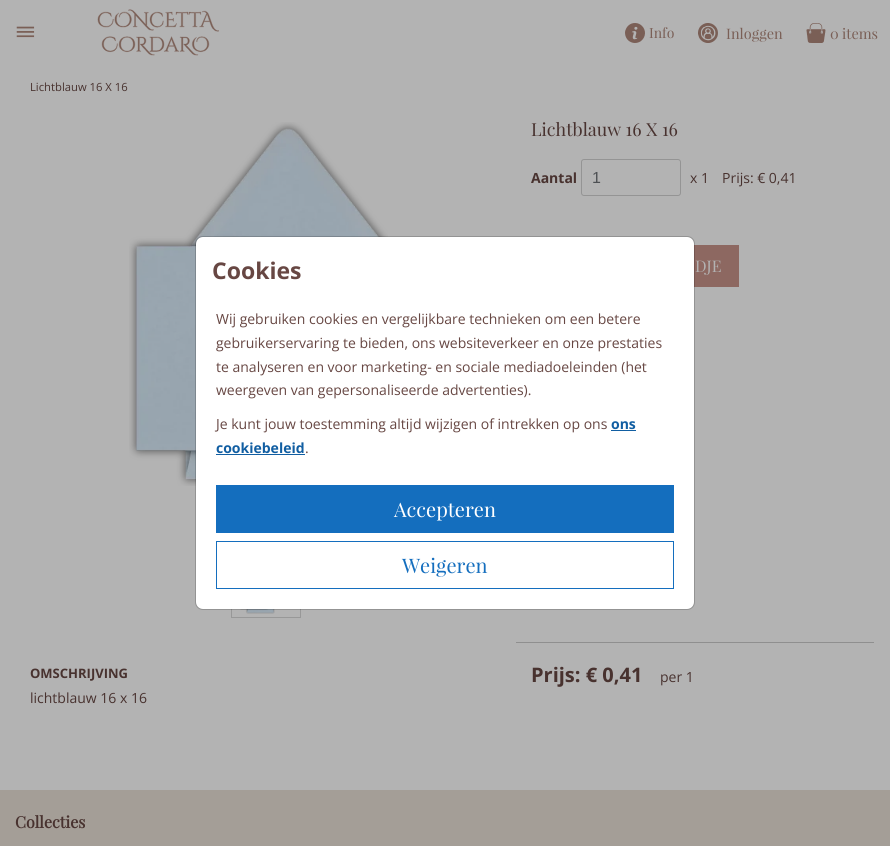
#include <cairo/cairo.h>
#include <math.h>
#include <stddef.h>

typedef struct { double x, y; const char *s; } line_t;
typedef struct { double x, y, w, h; unsigned color; } box_t;
static cairo_t *cr;

static void rgb(unsigned color)
{
	cairo_set_source_rgb(cr, (color >> 16) / 255.0, (color >> 8 & 255) / 255.0, (color & 255) / 255.0);
}

static void rrect(double x, double y, double w, double h, double r)
{
	cairo_new_sub_path(cr);
	cairo_arc(cr, x + w - r, y + h - r, r, 0, M_PI / 2);
	cairo_arc(cr, x + r, y + h - r, r, M_PI / 2, M_PI);
	cairo_arc(cr, x + r, y + r, r, M_PI, 1.5 * M_PI);
	cairo_arc(cr, x + w - r, y + r, r, 1.5 * M_PI, 2 * M_PI);
	cairo_close_path(cr);
}

static void image(const char *path, double x, double y, double w, double h)
{
	cairo_surface_t *image = cairo_image_surface_create_from_png(path);
	cairo_save(cr);
	cairo_set_source_surface(cr, image, x, y);
	cairo_rectangle(cr, x, y, w, h);
	cairo_fill(cr);
	cairo_restore(cr);
	cairo_surface_destroy(image);
}

int main(void) {
	cairo_surface_t *surface = cairo_image_surface_create(CAIRO_FORMAT_RGB24, 890, 846);
	cr = cairo_create(surface);
	cairo_font_options_t *options = cairo_font_options_create();
	cairo_font_options_set_hint_metrics(options, CAIRO_HINT_METRICS_OFF);
	cairo_font_options_set_hint_style(options, CAIRO_HINT_STYLE_NONE);
	cairo_set_font_options(cr, options);
	cairo_set_miter_limit(cr, 4);
	rgb(0xb3b3b3);
	cairo_paint(cr);
	image("img/1.png", 16, 26, 19, 12);
	image("img/2.png", 97, 9, 122, 47);
	image("img/3.png", 625, 23, 20, 20);
	image("img/4.png", 698, 23, 20, 20);
	image("img/5.png", 806, 23, 20, 20);
	image("img/6.png", 129, 122, 259, 364);
	cairo_rectangle(cr, 231.5, 548.5, 69, 69);
	rgb(0x989898);
	cairo_set_line_width(cr, 1);
	cairo_stroke(cr);
	image("img/7.png", 240, 609, 35, 5);
	rrect(581.5, 159.5, 99, 36, 2.5);
	rgb(0x949494);
	cairo_stroke(cr);
	rgb(0x8d6861);
	cairo_rectangle(cr, 694, 245, 45, 42);
	cairo_fill(cr);
	rgb(0x8f8f8f);
	cairo_rectangle(cr, 516, 642, 358, 1);
	cairo_fill(cr);
	rgb(0xffffff);
	rrect(196, 237, 498, 372, 7);
	cairo_fill(cr);
	rrect(195.5, 236.5, 499, 373, 7.5);
	cairo_set_source_rgba(cr, 0, 0, 0, 0.18);
	cairo_stroke(cr);
	{
		static const box_t items[] = {
			{611, 430, 25, 1, 0x115ea2},
			{216, 454, 89, 1, 0x115ea2},
			{216, 485, 458, 48, 0x146ebe},
		};
		for (size_t i = 0; i < sizeof items / sizeof *items; i++) {
			rgb(items[i].color);
			cairo_rectangle(cr, items[i].x, items[i].y, items[i].w, items[i].h);
			cairo_fill(cr);
		}
	}
	cairo_rectangle(cr, 216.5, 541.5, 457, 47);
	cairo_stroke(cr);
	rgb(0xa49e97);
	cairo_rectangle(cr, 0, 790, 890, 56);
	cairo_fill(cr);
	cairo_select_font_face(cr, "Playfair Display", CAIRO_FONT_SLANT_NORMAL, CAIRO_FONT_WEIGHT_NORMAL);
	cairo_set_font_size(cr, 14);
	rgb(0x7a5f56);
	cairo_move_to(cr, 649, 38);
	cairo_show_text(cr, "Info");
	cairo_set_font_size(cr, 14.5);
	{
		static const line_t items[] = {
			{726, 39, "Inloggen"},
			{830, 39, "0"},
			{842, 39, "items"},
		};
		for (size_t i = 0; i < sizeof items / sizeof *items; i++) {
			cairo_move_to(cr, items[i].x, items[i].y);
			cairo_show_text(cr, items[i].s);
		}
	}
	cairo_select_font_face(cr, "Open Sans", CAIRO_FONT_SLANT_NORMAL, CAIRO_FONT_WEIGHT_NORMAL);
	cairo_set_font_size(cr, 11.25);
	rgb(0x48322f);
	cairo_move_to(cr, 30, 91);
	cairo_show_text(cr, "Lichtblauw 16 X 16");
	cairo_select_font_face(cr, "Playfair Display", CAIRO_FONT_SLANT_NORMAL, CAIRO_FONT_WEIGHT_NORMAL);
	cairo_set_font_size(cr, 18);
	cairo_move_to(cr, 531, 136);
	cairo_show_text(cr, "Lichtblauw 16 X 16");
	cairo_select_font_face(cr, "Open Sans", CAIRO_FONT_SLANT_NORMAL, CAIRO_FONT_WEIGHT_BOLD);
	cairo_set_font_size(cr, 14);
	cairo_move_to(cr, 531, 183);
	cairo_show_text(cr, "Aantal");
	cairo_select_font_face(cr, "Liberation Sans", CAIRO_FONT_SLANT_NORMAL, CAIRO_FONT_WEIGHT_NORMAL);
	cairo_set_font_size(cr, 16);
	rgb(0x4d5053);
	cairo_move_to(cr, 592, 183);
	cairo_show_text(cr, "1");
	cairo_select_font_face(cr, "Open Sans", CAIRO_FONT_SLANT_NORMAL, CAIRO_FONT_WEIGHT_NORMAL);
	cairo_set_font_size(cr, 14);
	rgb(0x48322f);
	cairo_move_to(cr, 690, 183);
	cairo_show_text(cr, "x 1");
	cairo_move_to(cr, 722, 183);
	cairo_show_text(cr, "Prijs: € 0,41");
	cairo_select_font_face(cr, "Playfair Display", CAIRO_FONT_SLANT_NORMAL, CAIRO_FONT_WEIGHT_NORMAL);
	cairo_set_font_size(cr, 16);
	rgb(0xb3b3b3);
	cairo_move_to(cr, 695, 272);
	cairo_show_text(cr, "DJE");
	cairo_select_font_face(cr, "Open Sans", CAIRO_FONT_SLANT_NORMAL, CAIRO_FONT_WEIGHT_BOLD);
	cairo_set_font_size(cr, 13);
	rgb(0x48322f);
	cairo_move_to(cr, 30, 678);
	cairo_show_text(cr, "OMSCHRIJVING");
	cairo_select_font_face(cr, "Open Sans", CAIRO_FONT_SLANT_NORMAL, CAIRO_FONT_WEIGHT_NORMAL);
	cairo_set_font_size(cr, 14);
	cairo_move_to(cr, 30, 703);
	cairo_show_text(cr, "lichtblauw 16 x 16");
	cairo_select_font_face(cr, "Open Sans", CAIRO_FONT_SLANT_NORMAL, CAIRO_FONT_WEIGHT_BOLD);
	cairo_set_font_size(cr, 20);
	cairo_move_to(cr, 531, 682);
	cairo_show_text(cr, "Prijs: € 0,41");
	cairo_select_font_face(cr, "Open Sans", CAIRO_FONT_SLANT_NORMAL, CAIRO_FONT_WEIGHT_NORMAL);
	cairo_set_font_size(cr, 14);
	cairo_move_to(cr, 660, 682);
	cairo_show_text(cr, "per 1");
	cairo_select_font_face(cr, "Open Sans", CAIRO_FONT_SLANT_NORMAL, CAIRO_FONT_WEIGHT_BOLD);
	cairo_set_font_size(cr, 23);
	rgb(0x674743);
	cairo_move_to(cr, 212, 279);
	cairo_show_text(cr, "Cookies");
	cairo_select_font_face(cr, "Open Sans", CAIRO_FONT_SLANT_NORMAL, CAIRO_FONT_WEIGHT_NORMAL);
	cairo_set_font_size(cr, 14);
	{
		static const line_t items[] = {
			{216, 324, "Wij gebruiken cookies en vergelijkbare technieken om een betere"},
			{216, 348, "gebruikerservaring te bieden, ons websiteverkeer en onze prestaties"},
			{216, 372, "te analyseren en voor marketing- en sociale mediadoeleinden (het"},
			{216, 395, "weergeven van gepersonaliseerde advertenties)."},
			{216, 429, "Je kunt jouw toestemming altijd wijzigen of intrekken op ons"},
		};
		for (size_t i = 0; i < sizeof items / sizeof *items; i++) {
			cairo_move_to(cr, items[i].x, items[i].y);
			cairo_show_text(cr, items[i].s);
		}
	}
	cairo_select_font_face(cr, "Open Sans", CAIRO_FONT_SLANT_NORMAL, CAIRO_FONT_WEIGHT_BOLD);
	rgb(0x115ea2);
	cairo_move_to(cr, 611, 429);
	cairo_show_text(cr, "ons");
	cairo_move_to(cr, 216, 453);
	cairo_show_text(cr, "cookiebeleid");
	cairo_select_font_face(cr, "Open Sans", CAIRO_FONT_SLANT_NORMAL, CAIRO_FONT_WEIGHT_NORMAL);
	rgb(0x674743);
	cairo_move_to(cr, 305, 453);
	cairo_show_text(cr, ".");
	cairo_select_font_face(cr, "Playfair Display", CAIRO_FONT_SLANT_NORMAL, CAIRO_FONT_WEIGHT_NORMAL);
	cairo_set_font_size(cr, 20);
	rgb(0xffffff);
	cairo_move_to(cr, 394, 517);
	cairo_show_text(cr, "Accepteren");
	rgb(0x146ebe);
	cairo_move_to(cr, 402, 573);
	cairo_show_text(cr, "Weigeren");
	cairo_select_font_face(cr, "Playfair Display", CAIRO_FONT_SLANT_NORMAL, CAIRO_FONT_WEIGHT_BOLD);
	cairo_set_font_size(cr, 16);
	rgb(0x48322f);
	cairo_move_to(cr, 15, 828);
	cairo_show_text(cr, "Collecties");
	cairo_surface_write_to_png(surface, "page.png");
	cairo_font_options_destroy(options);
	cairo_destroy(cr);
	cairo_surface_destroy(surface);
	return 0;
}
